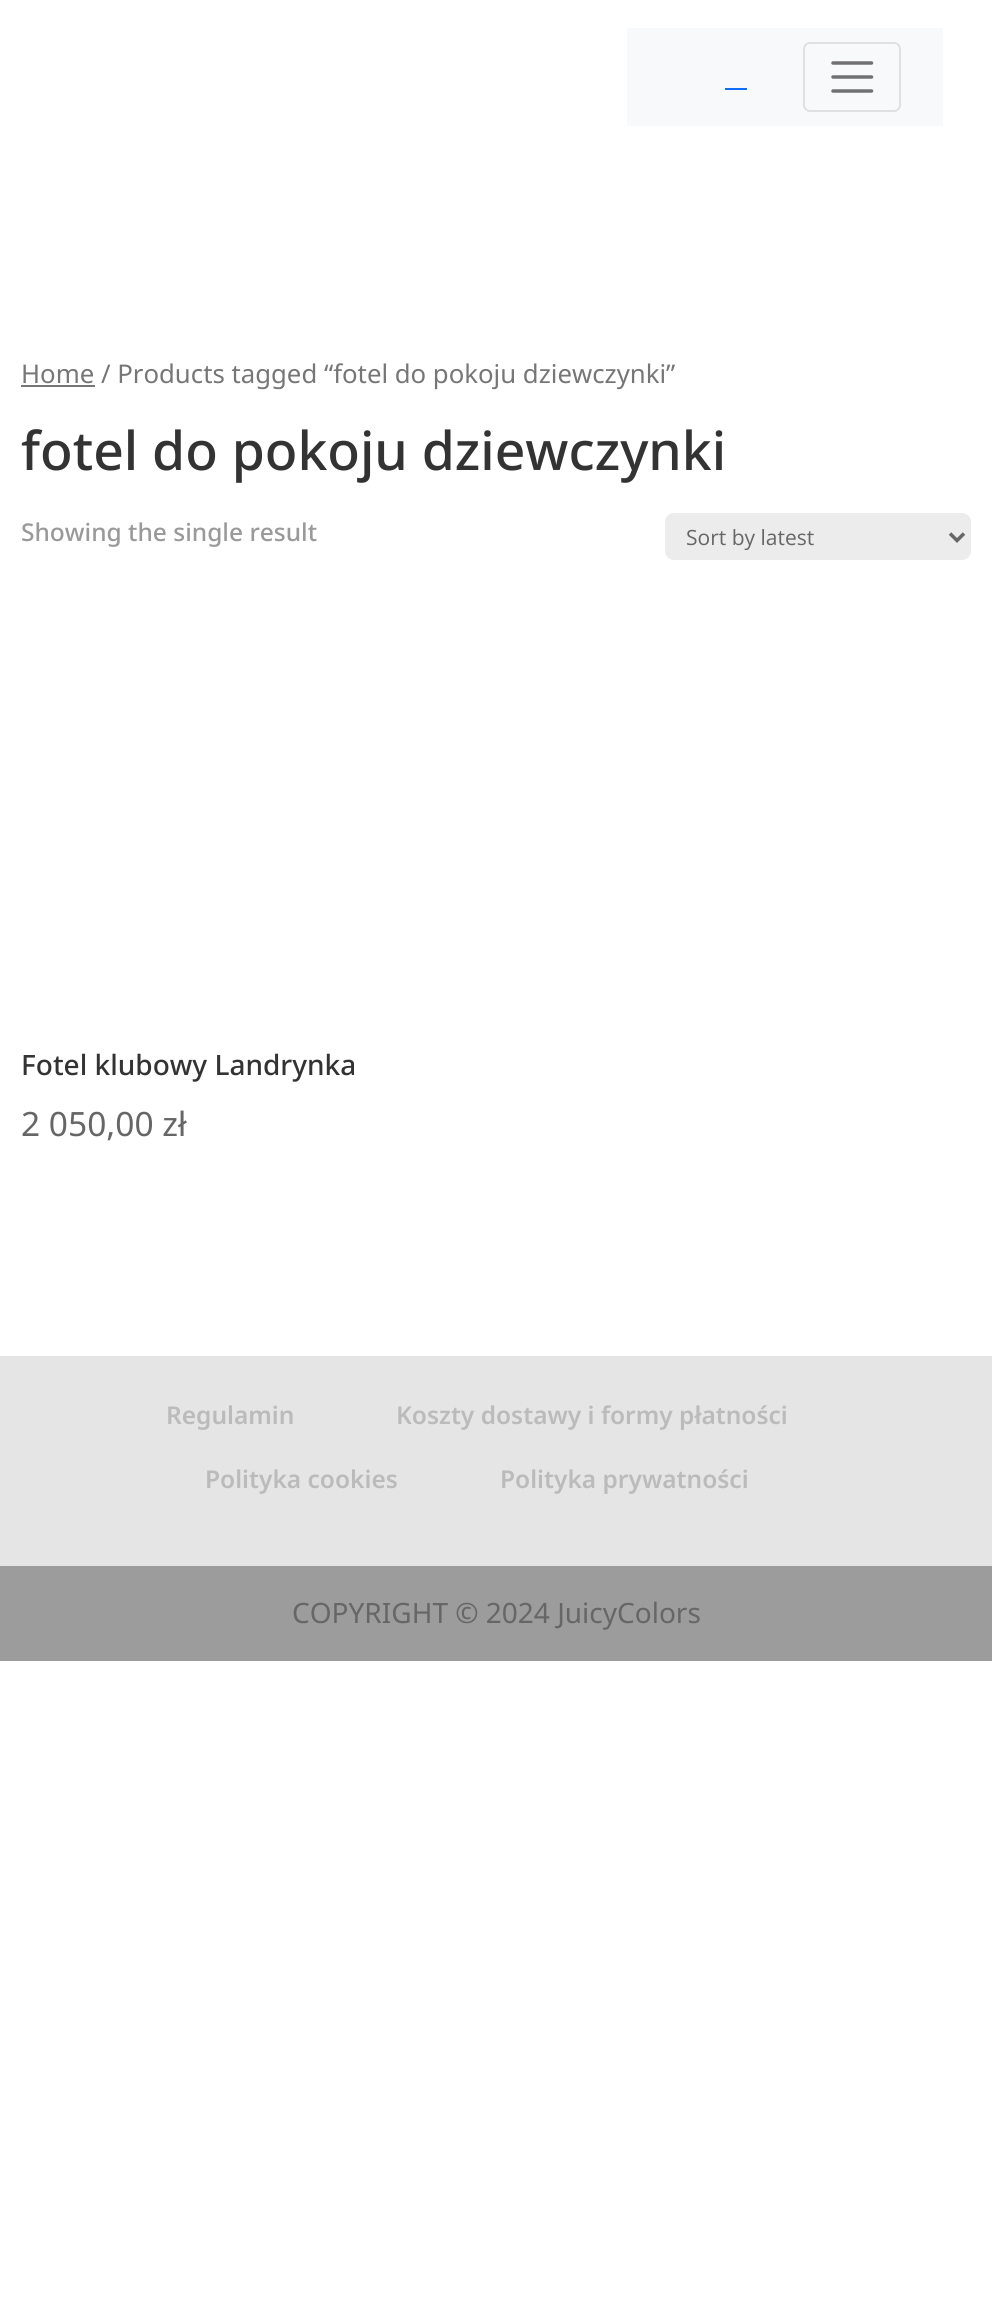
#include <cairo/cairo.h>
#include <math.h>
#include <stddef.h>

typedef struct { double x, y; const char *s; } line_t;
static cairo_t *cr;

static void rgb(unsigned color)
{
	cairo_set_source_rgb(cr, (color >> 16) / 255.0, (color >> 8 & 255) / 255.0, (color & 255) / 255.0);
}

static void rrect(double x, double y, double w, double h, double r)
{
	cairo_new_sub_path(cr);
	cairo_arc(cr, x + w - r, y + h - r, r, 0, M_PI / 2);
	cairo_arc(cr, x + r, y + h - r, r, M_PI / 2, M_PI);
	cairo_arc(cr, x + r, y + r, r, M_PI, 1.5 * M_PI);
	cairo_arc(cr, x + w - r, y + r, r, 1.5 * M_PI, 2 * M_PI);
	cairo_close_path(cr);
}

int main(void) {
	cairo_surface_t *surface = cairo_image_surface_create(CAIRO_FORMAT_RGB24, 992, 2303);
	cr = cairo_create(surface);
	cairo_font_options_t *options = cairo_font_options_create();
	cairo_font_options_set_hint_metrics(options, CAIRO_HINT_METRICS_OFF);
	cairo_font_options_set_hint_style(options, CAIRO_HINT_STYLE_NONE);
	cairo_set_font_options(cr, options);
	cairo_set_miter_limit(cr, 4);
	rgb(0xffffff);
	cairo_paint(cr);
	rgb(0xf8f9fa);
	cairo_rectangle(cr, 627, 28, 316, 98);
	cairo_fill(cr);
	rgb(0x0d6efd);
	cairo_rectangle(cr, 725, 88, 22, 2);
	cairo_fill(cr);
	rrect(804, 43, 96, 68, 6);
	rgb(0xdfe0e1);
	cairo_stroke(cr);
	cairo_new_path(cr);
	cairo_move_to(cr, 833, 63);
	cairo_line_to(cr, 871.5, 63);
	cairo_move_to(cr, 833, 77);
	cairo_line_to(cr, 871.5, 77);
	cairo_move_to(cr, 833, 91);
	cairo_line_to(cr, 871.5, 91);
	rgb(0x707071);
	cairo_set_line_width(cr, 3.5);
	cairo_set_line_cap(cr, CAIRO_LINE_CAP_ROUND);
	cairo_stroke(cr);
	rgb(0x767676);
	cairo_rectangle(cr, 21, 385, 74, 2);
	cairo_fill(cr);
	rgb(0xececec);
	rrect(665, 513, 306, 47, 9);
	cairo_fill(cr);
	cairo_new_path(cr);
	cairo_move_to(cr, 950, 533.5);
	cairo_line_to(cr, 957, 540.5);
	cairo_line_to(cr, 964, 533.5);
	rgb(0x666666);
	cairo_set_line_cap(cr, CAIRO_LINE_CAP_BUTT);
	cairo_stroke(cr);
	rgb(0xe5e5e5);
	cairo_rectangle(cr, 0, 1356, 992, 210);
	cairo_fill(cr);
	rgb(0x9c9c9c);
	cairo_rectangle(cr, 0, 1566, 992, 95);
	cairo_fill(cr);
	cairo_select_font_face(cr, "Noto Sans", CAIRO_FONT_SLANT_NORMAL, CAIRO_FONT_WEIGHT_NORMAL);
	cairo_set_font_size(cr, 25.75);
	rgb(0x767676);
	cairo_move_to(cr, 21, 383);
	cairo_show_text(cr, "Home / Products tagged “fotel do pokoju dziewczynki”");
	cairo_select_font_face(cr, "Noto Sans Medium", CAIRO_FONT_SLANT_NORMAL, CAIRO_FONT_WEIGHT_NORMAL);
	cairo_set_font_size(cr, 53.4);
	rgb(0x333333);
	cairo_move_to(cr, 21, 470);
	cairo_show_text(cr, "fotel do pokoju dziewczynki");
	cairo_set_font_size(cr, 24.5);
	rgb(0x999999);
	cairo_move_to(cr, 21, 541);
	cairo_show_text(cr, "Showing the single result");
	cairo_select_font_face(cr, "Open Sans", CAIRO_FONT_SLANT_NORMAL, CAIRO_FONT_WEIGHT_NORMAL);
	cairo_set_font_size(cr, 21);
	rgb(0x666666);
	cairo_move_to(cr, 686, 545);
	cairo_show_text(cr, "Sort by latest");
	cairo_select_font_face(cr, "Noto Sans Medium", CAIRO_FONT_SLANT_NORMAL, CAIRO_FONT_WEIGHT_NORMAL);
	cairo_set_font_size(cr, 28);
	rgb(0x333333);
	cairo_move_to(cr, 21, 1075);
	cairo_show_text(cr, "Fotel klubowy Landrynka");
	cairo_select_font_face(cr, "Noto Sans", CAIRO_FONT_SLANT_NORMAL, CAIRO_FONT_WEIGHT_NORMAL);
	cairo_set_font_size(cr, 33.5);
	rgb(0x666666);
	cairo_move_to(cr, 21, 1136);
	cairo_show_text(cr, "2 050,00 zł");
	cairo_select_font_face(cr, "Noto Sans SemiBold", CAIRO_FONT_SLANT_NORMAL, CAIRO_FONT_WEIGHT_NORMAL);
	cairo_set_font_size(cr, 24.5);
	rgb(0xbbbbbb);
	{
		static const line_t items[] = {
			{166, 1424, "Regulamin"},
			{396, 1424, "Koszty dostawy i formy płatności"},
			{205, 1488, "Polityka cookies"},
			{500, 1488, "Polityka prywatności"},
		};
		for (size_t i = 0; i < sizeof items / sizeof *items; i++) {
			cairo_move_to(cr, items[i].x, items[i].y);
			cairo_show_text(cr, items[i].s);
		}
	}
	cairo_select_font_face(cr, "Noto Sans", CAIRO_FONT_SLANT_NORMAL, CAIRO_FONT_WEIGHT_NORMAL);
	cairo_set_font_size(cr, 28);
	rgb(0x666666);
	cairo_move_to(cr, 292, 1623);
	cairo_show_text(cr, "COPYRIGHT © 2024 JuicyColors");
	cairo_surface_write_to_png(surface, "page.png");
	cairo_font_options_destroy(options);
	cairo_destroy(cr);
	cairo_surface_destroy(surface);
	return 0;
}
